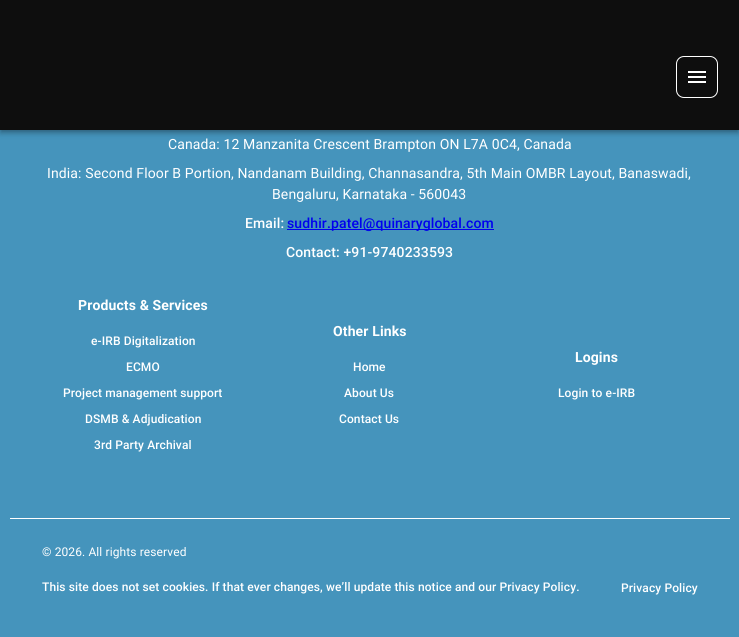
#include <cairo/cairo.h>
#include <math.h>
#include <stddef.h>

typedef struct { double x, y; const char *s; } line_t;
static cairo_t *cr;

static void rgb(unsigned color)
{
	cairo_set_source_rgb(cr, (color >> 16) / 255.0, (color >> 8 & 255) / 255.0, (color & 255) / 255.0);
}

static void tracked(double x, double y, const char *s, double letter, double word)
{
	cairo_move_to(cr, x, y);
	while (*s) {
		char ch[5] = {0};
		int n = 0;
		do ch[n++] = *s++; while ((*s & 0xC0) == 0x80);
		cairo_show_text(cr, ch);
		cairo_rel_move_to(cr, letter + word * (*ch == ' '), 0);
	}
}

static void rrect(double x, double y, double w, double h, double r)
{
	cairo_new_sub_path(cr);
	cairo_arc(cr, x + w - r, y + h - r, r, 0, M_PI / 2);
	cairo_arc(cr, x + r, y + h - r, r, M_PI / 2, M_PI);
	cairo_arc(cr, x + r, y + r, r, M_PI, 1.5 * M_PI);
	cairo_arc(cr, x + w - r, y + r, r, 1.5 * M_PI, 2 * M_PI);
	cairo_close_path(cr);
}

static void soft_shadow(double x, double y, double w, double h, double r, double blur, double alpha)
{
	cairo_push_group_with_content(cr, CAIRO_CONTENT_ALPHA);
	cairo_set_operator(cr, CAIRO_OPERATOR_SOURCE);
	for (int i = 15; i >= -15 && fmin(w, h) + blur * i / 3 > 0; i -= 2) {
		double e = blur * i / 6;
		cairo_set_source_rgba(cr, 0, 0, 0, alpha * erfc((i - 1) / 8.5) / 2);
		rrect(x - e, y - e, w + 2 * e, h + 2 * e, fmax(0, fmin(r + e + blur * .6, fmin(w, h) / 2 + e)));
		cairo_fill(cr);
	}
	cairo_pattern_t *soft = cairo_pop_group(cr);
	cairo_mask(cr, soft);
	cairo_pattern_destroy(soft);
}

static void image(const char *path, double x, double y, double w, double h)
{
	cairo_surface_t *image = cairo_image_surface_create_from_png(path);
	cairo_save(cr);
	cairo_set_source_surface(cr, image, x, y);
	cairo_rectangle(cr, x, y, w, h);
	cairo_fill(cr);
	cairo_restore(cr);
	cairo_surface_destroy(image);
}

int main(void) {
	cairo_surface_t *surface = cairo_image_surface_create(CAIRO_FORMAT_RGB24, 739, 637);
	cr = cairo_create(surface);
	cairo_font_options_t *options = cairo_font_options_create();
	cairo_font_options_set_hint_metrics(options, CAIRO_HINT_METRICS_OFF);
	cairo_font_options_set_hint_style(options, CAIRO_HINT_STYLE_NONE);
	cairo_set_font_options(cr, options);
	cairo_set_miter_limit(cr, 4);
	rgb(0x4594bc);
	cairo_paint(cr);
	rgb(0x000000);
	soft_shadow(0, 1, 739, 130, 0, 5, 0.12);
	soft_shadow(0, 4, 739, 130, 0, 2.5, 0.14);
	soft_shadow(1, 3, 737, 128, 0, 2, 0.2);
	rgb(0x0e0e0e);
	cairo_rectangle(cr, 0, 0, 739, 130);
	cairo_fill(cr);
	rrect(676.5, 56.5, 41, 41, 7.5);
	rgb(0xffffff);
	cairo_set_line_width(cr, 1);
	cairo_stroke(cr);
	image("img/1.png", 688, 71, 18, 12);
	rgb(0x0000ee);
	cairo_rectangle(cr, 287, 229, 207, 1);
	cairo_fill(cr);
	rgb(0xffffff);
	cairo_rectangle(cr, 10, 518, 720, 1);
	cairo_fill(cr);
	cairo_select_font_face(cr, "Roboto", CAIRO_FONT_SLANT_NORMAL, CAIRO_FONT_WEIGHT_NORMAL);
	cairo_set_font_size(cr, 14);
	{
		static const line_t items[] = {
			{168, 149, "Canada: 12 Manzanita Crescent Brampton ON L7A 0C4, Canada"},
			{47, 178, "India: Second Floor B Portion, Nandanam Building, Channasandra, 5th Main OMBR Layout, Banaswadi,"},
			{272, 199, "Bengaluru, Karnataka - 560043"},
		};
		for (size_t i = 0; i < sizeof items / sizeof *items; i++) {
			tracked(items[i].x, items[i].y, items[i].s, 0.13, 0);
		}
	}
	cairo_select_font_face(cr, "Roboto Medium", CAIRO_FONT_SLANT_NORMAL, CAIRO_FONT_WEIGHT_NORMAL);
	tracked(245, 228, "Email:", 0.13, 0);
	rgb(0x0000ee);
	tracked(287, 228, "sudhir.patel@quinaryglobal.com", 0.13, 0);
	rgb(0xffffff);
	tracked(286, 257, "Contact: +91-9740233593", 0.13, 0);
	cairo_select_font_face(cr, "Roboto", CAIRO_FONT_SLANT_NORMAL, CAIRO_FONT_WEIGHT_BOLD);
	tracked(78, 310, "Products & Services", 0.13, 0);
	cairo_select_font_face(cr, "Roboto Medium", CAIRO_FONT_SLANT_NORMAL, CAIRO_FONT_WEIGHT_NORMAL);
	cairo_set_font_size(cr, 12);
	{
		static const line_t items[] = {
			{91, 345, "e-IRB Digitalization"},
			{126, 371, "ECMO"},
			{63, 397, "Project management support"},
			{85, 423, "DSMB & Adjudication"},
			{94, 449, "3rd Party Archival"},
		};
		for (size_t i = 0; i < sizeof items / sizeof *items; i++) {
			tracked(items[i].x, items[i].y, items[i].s, 0.11, 0);
		}
	}
	cairo_select_font_face(cr, "Roboto", CAIRO_FONT_SLANT_NORMAL, CAIRO_FONT_WEIGHT_BOLD);
	cairo_set_font_size(cr, 14);
	tracked(333, 336, "Other Links", 0.13, 0);
	cairo_select_font_face(cr, "Roboto Medium", CAIRO_FONT_SLANT_NORMAL, CAIRO_FONT_WEIGHT_NORMAL);
	cairo_set_font_size(cr, 12);
	{
		static const line_t items[] = {
			{353, 371, "Home"},
			{344, 397, "About Us"},
			{339, 423, "Contact Us"},
		};
		for (size_t i = 0; i < sizeof items / sizeof *items; i++) {
			tracked(items[i].x, items[i].y, items[i].s, 0.11, 0);
		}
	}
	cairo_select_font_face(cr, "Roboto", CAIRO_FONT_SLANT_NORMAL, CAIRO_FONT_WEIGHT_BOLD);
	cairo_set_font_size(cr, 14);
	tracked(575, 362, "Logins", 0.13, 0);
	cairo_select_font_face(cr, "Roboto Medium", CAIRO_FONT_SLANT_NORMAL, CAIRO_FONT_WEIGHT_NORMAL);
	cairo_set_font_size(cr, 12);
	tracked(558, 397, "Login to e-IRB", 0.11, 0);
	cairo_select_font_face(cr, "Roboto", CAIRO_FONT_SLANT_NORMAL, CAIRO_FONT_WEIGHT_NORMAL);
	tracked(42, 556, "© 2026. All rights reserved", 0.11, 0);
	cairo_select_font_face(cr, "Roboto Medium", CAIRO_FONT_SLANT_NORMAL, CAIRO_FONT_WEIGHT_NORMAL);
	tracked(42, 591, "This site does not set cookies. If that ever changes, we’ll update this notice and our Privacy Policy.", 0.11, 0);
	tracked(621, 592, "Privacy Policy", 0.11, 0);
	cairo_surface_write_to_png(surface, "page.png");
	cairo_font_options_destroy(options);
	cairo_destroy(cr);
	cairo_surface_destroy(surface);
	return 0;
}
